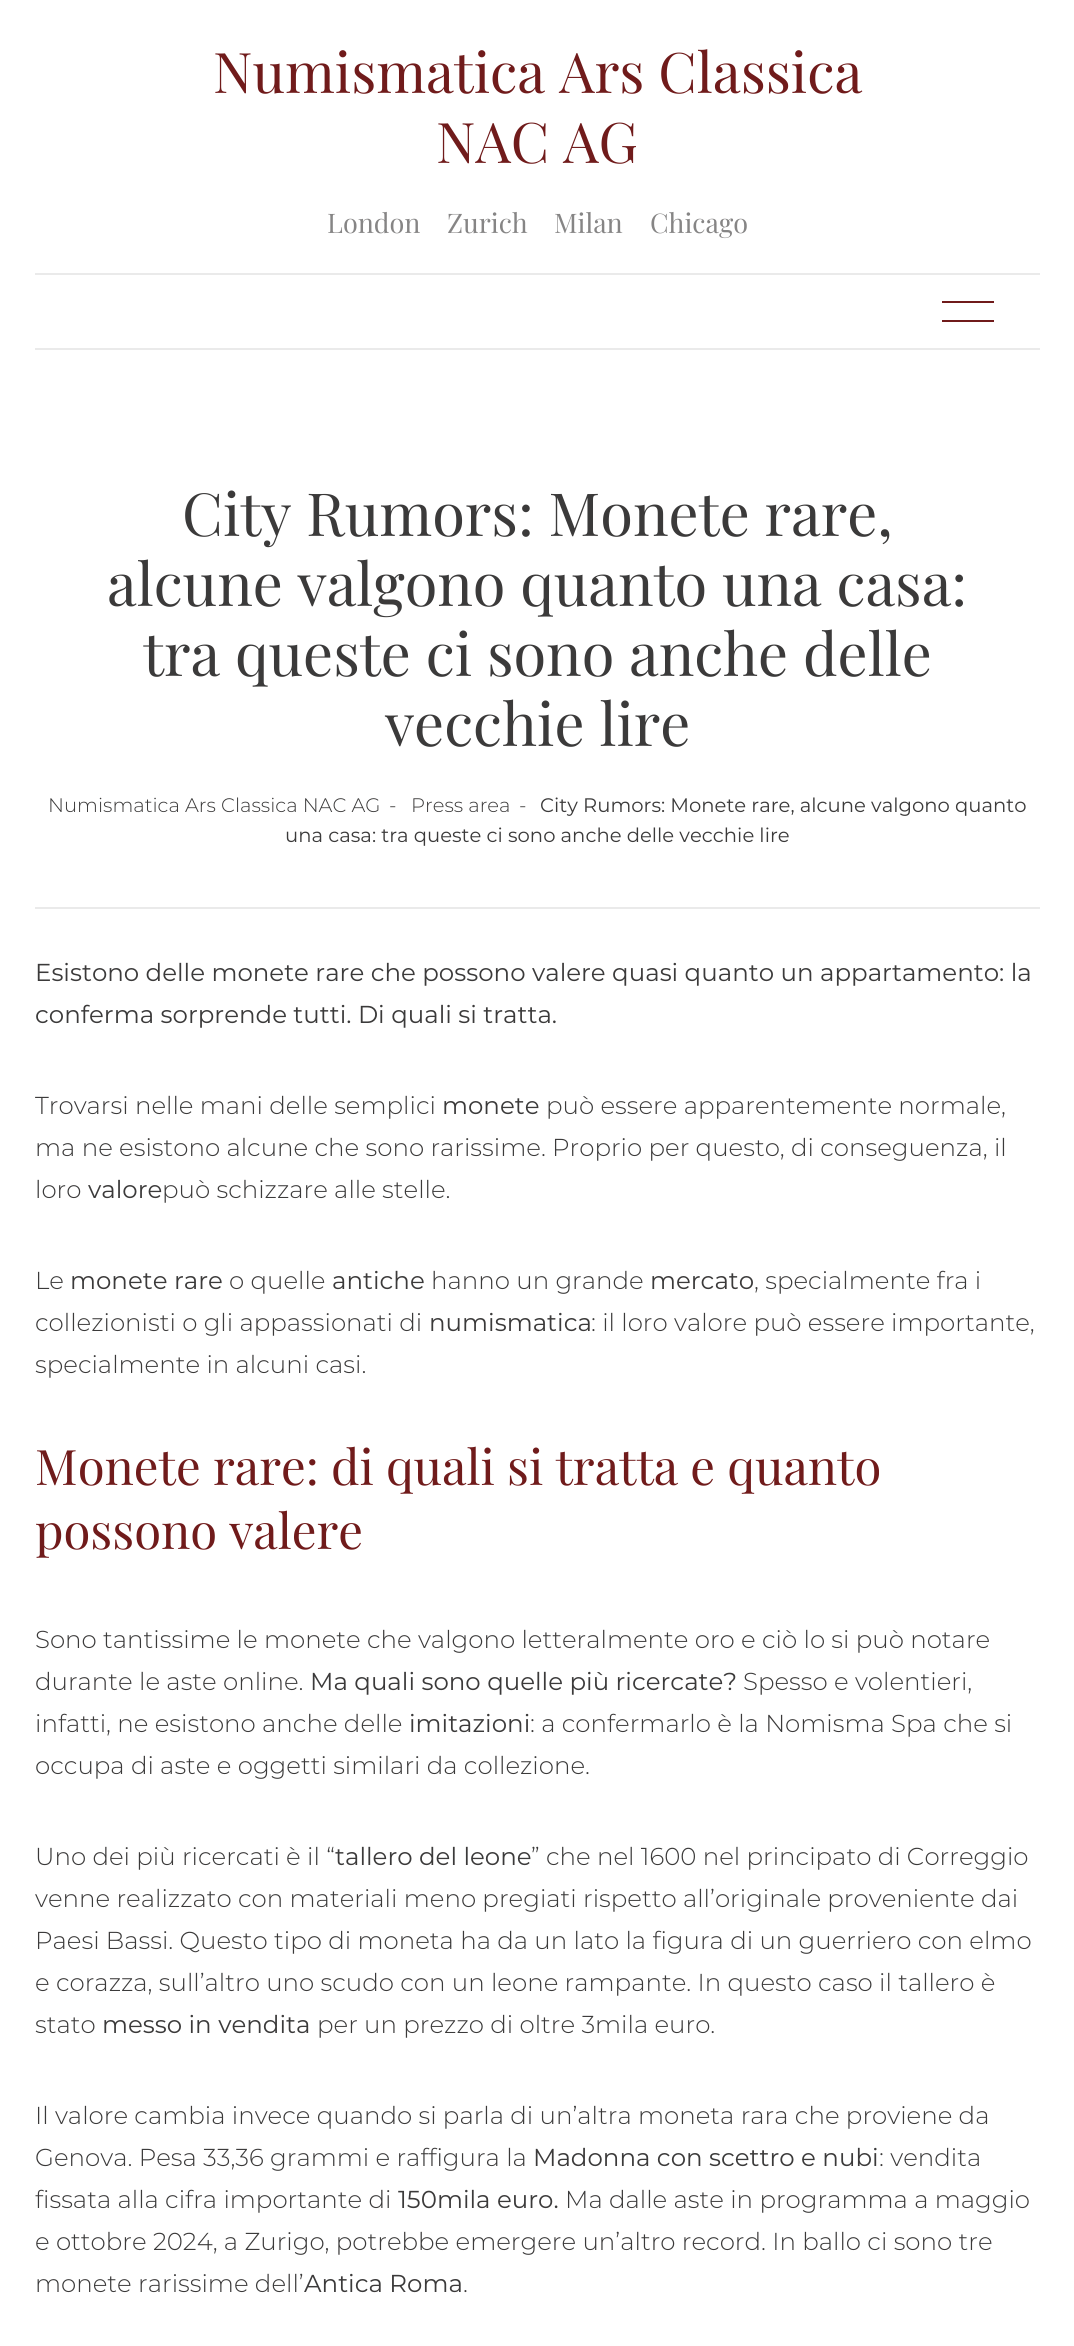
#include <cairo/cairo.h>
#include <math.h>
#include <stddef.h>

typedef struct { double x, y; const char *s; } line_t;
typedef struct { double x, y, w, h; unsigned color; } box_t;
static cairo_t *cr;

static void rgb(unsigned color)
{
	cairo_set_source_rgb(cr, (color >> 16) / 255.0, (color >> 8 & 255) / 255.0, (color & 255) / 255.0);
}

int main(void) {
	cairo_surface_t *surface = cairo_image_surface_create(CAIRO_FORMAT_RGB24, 1074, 2346);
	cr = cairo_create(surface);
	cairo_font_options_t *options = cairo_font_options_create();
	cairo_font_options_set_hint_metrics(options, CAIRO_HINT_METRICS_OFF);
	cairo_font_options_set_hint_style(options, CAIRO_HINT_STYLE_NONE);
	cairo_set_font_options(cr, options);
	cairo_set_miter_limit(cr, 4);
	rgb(0xffffff);
	cairo_paint(cr);
	{
		static const box_t items[] = {
			{35, 273, 1005, 2, 0xeaeaea},
			{35, 348, 1005, 2, 0xeaeaea},
			{942, 301, 52, 2, 0x701b1b},
			{942, 320, 52, 2, 0x701b1b},
			{35, 907, 1005, 2, 0xeaeaea},
		};
		for (size_t i = 0; i < sizeof items / sizeof *items; i++) {
			rgb(items[i].color);
			cairo_rectangle(cr, items[i].x, items[i].y, items[i].w, items[i].h);
			cairo_fill(cr);
		}
	}
	cairo_select_font_face(cr, "Playfair Display", CAIRO_FONT_SLANT_NORMAL, CAIRO_FONT_WEIGHT_NORMAL);
	cairo_set_font_size(cr, 56);
	rgb(0x701b1b);
	cairo_move_to(cr, 213, 93);
	cairo_show_text(cr, "Numismatica Ars Classica");
	cairo_move_to(cr, 436, 163);
	cairo_show_text(cr, "NAC AG");
	cairo_set_font_size(cr, 27);
	rgb(0x868585);
	{
		static const line_t items[] = {
			{327, 233, "London"},
			{447, 233, "Zurich"},
			{554, 233, "Milan"},
			{650, 233, "Chicago"},
		};
		for (size_t i = 0; i < sizeof items / sizeof *items; i++) {
			cairo_move_to(cr, items[i].x, items[i].y);
			cairo_show_text(cr, items[i].s);
		}
	}
	cairo_set_font_size(cr, 59.5);
	rgb(0x3b3a3a);
	{
		static const line_t items[] = {
			{182, 536, "City Rumors: Monete rare,"},
			{107, 606, "alcune valgono quanto una casa:"},
			{143, 676, "tra queste ci sono anche delle"},
			{385, 746, "vecchie lire"},
		};
		for (size_t i = 0; i < sizeof items / sizeof *items; i++) {
			cairo_move_to(cr, items[i].x, items[i].y);
			cairo_show_text(cr, items[i].s);
		}
	}
	cairo_select_font_face(cr, "Montserrat Light", CAIRO_FONT_SLANT_NORMAL, CAIRO_FONT_WEIGHT_NORMAL);
	cairo_set_font_size(cr, 19.6);
	{
		static const line_t items[] = {
			{48, 812, "Numismatica Ars Classica NAC AG"},
			{389, 812, "-"},
			{411, 812, "Press area"},
			{519, 812, "-"},
		};
		for (size_t i = 0; i < sizeof items / sizeof *items; i++) {
			cairo_move_to(cr, items[i].x, items[i].y);
			cairo_show_text(cr, items[i].s);
		}
	}
	cairo_select_font_face(cr, "Montserrat", CAIRO_FONT_SLANT_NORMAL, CAIRO_FONT_WEIGHT_NORMAL);
	cairo_move_to(cr, 540, 812);
	cairo_show_text(cr, "City Rumors: Monete rare, alcune valgono quanto");
	cairo_move_to(cr, 285, 842);
	cairo_show_text(cr, "una casa: tra queste ci sono anche delle vecchie lire");
	cairo_set_font_size(cr, 24.5);
	cairo_move_to(cr, 35, 981);
	cairo_show_text(cr, "Esistono delle monete rare che possono valere quasi quanto un appartamento: la");
	cairo_move_to(cr, 35, 1023);
	cairo_show_text(cr, "conferma sorprende tutti. Di quali si tratta.");
	cairo_select_font_face(cr, "Montserrat Light", CAIRO_FONT_SLANT_NORMAL, CAIRO_FONT_WEIGHT_NORMAL);
	cairo_move_to(cr, 35, 1114);
	cairo_show_text(cr, "Trovarsi nelle mani delle semplici");
	cairo_select_font_face(cr, "Montserrat", CAIRO_FONT_SLANT_NORMAL, CAIRO_FONT_WEIGHT_NORMAL);
	cairo_move_to(cr, 442, 1114);
	cairo_show_text(cr, "monete");
	cairo_select_font_face(cr, "Montserrat Light", CAIRO_FONT_SLANT_NORMAL, CAIRO_FONT_WEIGHT_NORMAL);
	{
		static const line_t items[] = {
			{546, 1114, "può essere apparentemente normale,"},
			{35, 1156, "ma ne esistono alcune che sono rarissime. Proprio per questo, di conseguenza, il"},
			{35, 1198, "loro"},
		};
		for (size_t i = 0; i < sizeof items / sizeof *items; i++) {
			cairo_move_to(cr, items[i].x, items[i].y);
			cairo_show_text(cr, items[i].s);
		}
	}
	cairo_select_font_face(cr, "Montserrat", CAIRO_FONT_SLANT_NORMAL, CAIRO_FONT_WEIGHT_NORMAL);
	cairo_move_to(cr, 88, 1198);
	cairo_show_text(cr, "valore");
	cairo_select_font_face(cr, "Montserrat Light", CAIRO_FONT_SLANT_NORMAL, CAIRO_FONT_WEIGHT_NORMAL);
	cairo_move_to(cr, 162, 1198);
	cairo_show_text(cr, "può schizzare alle stelle.");
	cairo_move_to(cr, 35, 1289);
	cairo_show_text(cr, "Le");
	cairo_select_font_face(cr, "Montserrat", CAIRO_FONT_SLANT_NORMAL, CAIRO_FONT_WEIGHT_NORMAL);
	cairo_move_to(cr, 70, 1289);
	cairo_show_text(cr, "monete rare");
	cairo_select_font_face(cr, "Montserrat Light", CAIRO_FONT_SLANT_NORMAL, CAIRO_FONT_WEIGHT_NORMAL);
	cairo_move_to(cr, 229, 1289);
	cairo_show_text(cr, "o quelle");
	cairo_select_font_face(cr, "Montserrat", CAIRO_FONT_SLANT_NORMAL, CAIRO_FONT_WEIGHT_NORMAL);
	cairo_move_to(cr, 332, 1289);
	cairo_show_text(cr, "antiche");
	cairo_select_font_face(cr, "Montserrat Light", CAIRO_FONT_SLANT_NORMAL, CAIRO_FONT_WEIGHT_NORMAL);
	cairo_move_to(cr, 431, 1289);
	cairo_show_text(cr, "hanno un grande");
	cairo_select_font_face(cr, "Montserrat", CAIRO_FONT_SLANT_NORMAL, CAIRO_FONT_WEIGHT_NORMAL);
	cairo_move_to(cr, 650, 1289);
	cairo_show_text(cr, "mercato");
	cairo_select_font_face(cr, "Montserrat Light", CAIRO_FONT_SLANT_NORMAL, CAIRO_FONT_WEIGHT_NORMAL);
	cairo_move_to(cr, 754, 1289);
	cairo_show_text(cr, ", specialmente fra i");
	cairo_move_to(cr, 35, 1331);
	cairo_show_text(cr, "collezionisti o gli appassionati di");
	cairo_select_font_face(cr, "Montserrat", CAIRO_FONT_SLANT_NORMAL, CAIRO_FONT_WEIGHT_NORMAL);
	cairo_move_to(cr, 429, 1331);
	cairo_show_text(cr, "numismatica");
	cairo_select_font_face(cr, "Montserrat Light", CAIRO_FONT_SLANT_NORMAL, CAIRO_FONT_WEIGHT_NORMAL);
	cairo_move_to(cr, 591, 1331);
	cairo_show_text(cr, ": il loro valore può essere importante,");
	cairo_move_to(cr, 35, 1373);
	cairo_show_text(cr, "specialmente in alcuni casi.");
	cairo_select_font_face(cr, "Playfair Display", CAIRO_FONT_SLANT_NORMAL, CAIRO_FONT_WEIGHT_NORMAL);
	cairo_set_font_size(cr, 49);
	rgb(0x701b1b);
	cairo_move_to(cr, 35, 1485);
	cairo_show_text(cr, "Monete rare: di quali si tratta e quanto");
	cairo_move_to(cr, 35, 1549);
	cairo_show_text(cr, "possono valere");
	cairo_select_font_face(cr, "Montserrat Light", CAIRO_FONT_SLANT_NORMAL, CAIRO_FONT_WEIGHT_NORMAL);
	cairo_set_font_size(cr, 24.5);
	rgb(0x3b3a3a);
	cairo_move_to(cr, 35, 1648);
	cairo_show_text(cr, "Sono tantissime le monete che valgono letteralmente oro e ciò lo si può notare");
	cairo_move_to(cr, 35, 1690);
	cairo_show_text(cr, "durante le aste online.");
	cairo_select_font_face(cr, "Montserrat", CAIRO_FONT_SLANT_NORMAL, CAIRO_FONT_WEIGHT_NORMAL);
	cairo_move_to(cr, 310, 1690);
	cairo_show_text(cr, "Ma quali sono quelle più ricercate?");
	cairo_select_font_face(cr, "Montserrat Light", CAIRO_FONT_SLANT_NORMAL, CAIRO_FONT_WEIGHT_NORMAL);
	cairo_move_to(cr, 743, 1690);
	cairo_show_text(cr, "Spesso e volentieri,");
	cairo_move_to(cr, 35, 1732);
	cairo_show_text(cr, "infatti, ne esistono anche delle");
	cairo_select_font_face(cr, "Montserrat", CAIRO_FONT_SLANT_NORMAL, CAIRO_FONT_WEIGHT_NORMAL);
	cairo_move_to(cr, 409, 1732);
	cairo_show_text(cr, "imitazioni");
	cairo_select_font_face(cr, "Montserrat Light", CAIRO_FONT_SLANT_NORMAL, CAIRO_FONT_WEIGHT_NORMAL);
	{
		static const line_t items[] = {
			{530, 1732, ": a confermarlo è la Nomisma Spa che si"},
			{35, 1774, "occupa di aste e oggetti similari da collezione."},
			{35, 1865, "Uno dei più ricercati è il “"},
		};
		for (size_t i = 0; i < sizeof items / sizeof *items; i++) {
			cairo_move_to(cr, items[i].x, items[i].y);
			cairo_show_text(cr, items[i].s);
		}
	}
	cairo_select_font_face(cr, "Montserrat", CAIRO_FONT_SLANT_NORMAL, CAIRO_FONT_WEIGHT_NORMAL);
	cairo_move_to(cr, 335, 1865);
	cairo_show_text(cr, "tallero del leone");
	cairo_select_font_face(cr, "Montserrat Light", CAIRO_FONT_SLANT_NORMAL, CAIRO_FONT_WEIGHT_NORMAL);
	{
		static const line_t items[] = {
			{531, 1865, "” che nel 1600 nel principato di Correggio"},
			{35, 1907, "venne realizzato con materiali meno pregiati rispetto all’originale proveniente dai"},
			{35, 1949, "Paesi Bassi. Questo tipo di moneta ha da un lato la figura di un guerriero con elmo"},
			{35, 1991, "e corazza, sull’altro uno scudo con un leone rampante. In questo caso il tallero è"},
			{35, 2033, "stato"},
		};
		for (size_t i = 0; i < sizeof items / sizeof *items; i++) {
			cairo_move_to(cr, items[i].x, items[i].y);
			cairo_show_text(cr, items[i].s);
		}
	}
	cairo_select_font_face(cr, "Montserrat", CAIRO_FONT_SLANT_NORMAL, CAIRO_FONT_WEIGHT_NORMAL);
	cairo_move_to(cr, 102, 2033);
	cairo_show_text(cr, "messo in vendita");
	cairo_select_font_face(cr, "Montserrat Light", CAIRO_FONT_SLANT_NORMAL, CAIRO_FONT_WEIGHT_NORMAL);
	{
		static const line_t items[] = {
			{317, 2033, "per un prezzo di oltre 3mila euro."},
			{35, 2124, "Il valore cambia invece quando si parla di un’altra moneta rara che proviene da"},
			{35, 2166, "Genova. Pesa 33,36 grammi e raffigura la"},
		};
		for (size_t i = 0; i < sizeof items / sizeof *items; i++) {
			cairo_move_to(cr, items[i].x, items[i].y);
			cairo_show_text(cr, items[i].s);
		}
	}
	cairo_select_font_face(cr, "Montserrat", CAIRO_FONT_SLANT_NORMAL, CAIRO_FONT_WEIGHT_NORMAL);
	cairo_move_to(cr, 533, 2166);
	cairo_show_text(cr, "Madonna con scettro e nubi");
	cairo_select_font_face(cr, "Montserrat Light", CAIRO_FONT_SLANT_NORMAL, CAIRO_FONT_WEIGHT_NORMAL);
	cairo_move_to(cr, 879, 2166);
	cairo_show_text(cr, ": vendita");
	cairo_move_to(cr, 35, 2208);
	cairo_show_text(cr, "fissata alla cifra importante di");
	cairo_select_font_face(cr, "Montserrat", CAIRO_FONT_SLANT_NORMAL, CAIRO_FONT_WEIGHT_NORMAL);
	cairo_move_to(cr, 398, 2208);
	cairo_show_text(cr, "150mila euro.");
	cairo_select_font_face(cr, "Montserrat Light", CAIRO_FONT_SLANT_NORMAL, CAIRO_FONT_WEIGHT_NORMAL);
	{
		static const line_t items[] = {
			{565, 2208, "Ma dalle aste in programma a maggio"},
			{35, 2250, "e ottobre 2024, a Zurigo, potrebbe emergere un’altro record. In ballo ci sono tre"},
			{35, 2292, "monete rarissime dell’"},
		};
		for (size_t i = 0; i < sizeof items / sizeof *items; i++) {
			cairo_move_to(cr, items[i].x, items[i].y);
			cairo_show_text(cr, items[i].s);
		}
	}
	cairo_select_font_face(cr, "Montserrat", CAIRO_FONT_SLANT_NORMAL, CAIRO_FONT_WEIGHT_NORMAL);
	cairo_move_to(cr, 304, 2292);
	cairo_show_text(cr, "Antica Roma");
	cairo_select_font_face(cr, "Montserrat Light", CAIRO_FONT_SLANT_NORMAL, CAIRO_FONT_WEIGHT_NORMAL);
	cairo_move_to(cr, 463, 2292);
	cairo_show_text(cr, ".");
	cairo_surface_write_to_png(surface, "page.png");
	cairo_font_options_destroy(options);
	cairo_destroy(cr);
	cairo_surface_destroy(surface);
	return 0;
}
